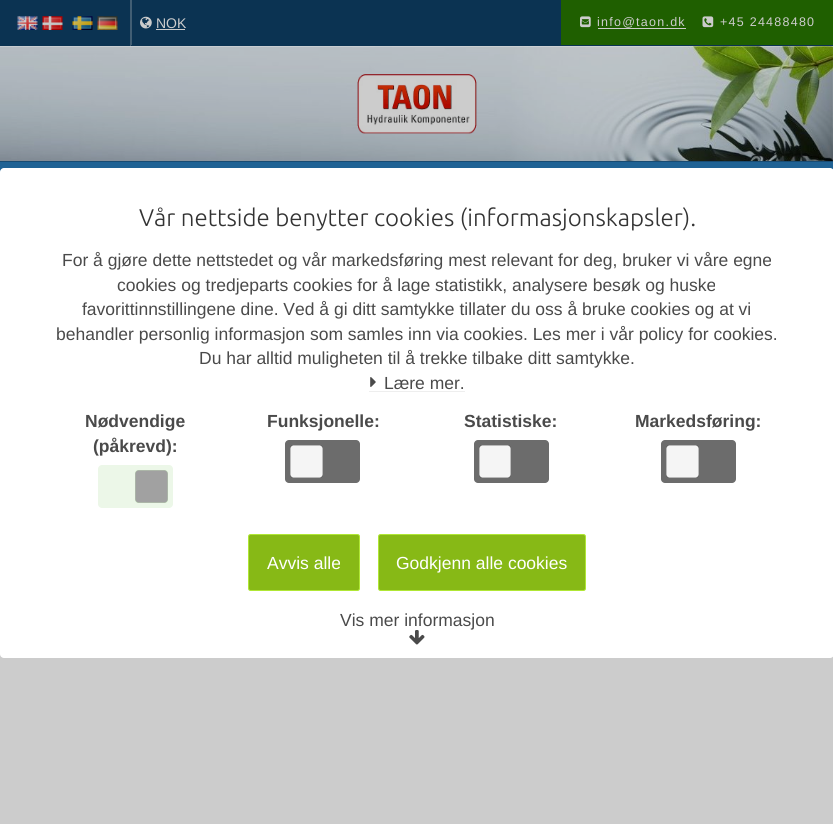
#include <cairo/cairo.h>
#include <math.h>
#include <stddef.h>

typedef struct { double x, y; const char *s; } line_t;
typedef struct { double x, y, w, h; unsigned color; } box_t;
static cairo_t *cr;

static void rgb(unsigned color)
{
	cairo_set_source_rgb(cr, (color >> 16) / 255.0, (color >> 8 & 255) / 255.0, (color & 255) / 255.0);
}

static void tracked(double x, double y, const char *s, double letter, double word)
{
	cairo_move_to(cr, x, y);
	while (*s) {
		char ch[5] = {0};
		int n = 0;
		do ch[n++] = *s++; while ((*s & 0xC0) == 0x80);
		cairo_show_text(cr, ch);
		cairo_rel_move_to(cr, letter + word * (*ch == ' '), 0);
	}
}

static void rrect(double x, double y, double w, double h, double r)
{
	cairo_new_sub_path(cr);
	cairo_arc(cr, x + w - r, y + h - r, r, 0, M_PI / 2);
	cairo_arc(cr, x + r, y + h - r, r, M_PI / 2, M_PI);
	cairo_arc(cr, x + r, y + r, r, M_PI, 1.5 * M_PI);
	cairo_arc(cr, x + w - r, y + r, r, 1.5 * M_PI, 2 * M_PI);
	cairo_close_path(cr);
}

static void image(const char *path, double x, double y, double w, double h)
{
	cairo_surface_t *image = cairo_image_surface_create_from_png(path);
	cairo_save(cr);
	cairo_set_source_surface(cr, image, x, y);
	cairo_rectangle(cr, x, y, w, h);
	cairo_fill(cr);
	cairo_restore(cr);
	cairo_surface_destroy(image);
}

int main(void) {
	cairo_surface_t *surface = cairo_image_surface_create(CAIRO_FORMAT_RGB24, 833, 824);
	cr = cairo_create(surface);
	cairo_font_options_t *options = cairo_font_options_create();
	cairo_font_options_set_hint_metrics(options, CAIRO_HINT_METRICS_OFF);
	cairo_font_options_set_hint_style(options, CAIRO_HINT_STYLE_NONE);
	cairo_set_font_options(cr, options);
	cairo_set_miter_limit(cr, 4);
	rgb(0xffffff);
	cairo_paint(cr);
	rgb(0x0b3352);
	cairo_rectangle(cr, 0, 0, 833, 46);
	cairo_fill(cr);
	rgb(0x415e74);
	cairo_rectangle(cr, 130, 0, 1, 46);
	cairo_fill(cr);
	image("img/1.png", 17, 16, 21, 14);
	image("img/2.png", 42, 16, 21, 14);
	image("img/3.png", 72, 16, 21, 14);
	image("img/4.png", 97, 16, 21, 14);
	cairo_rectangle(cr, 131, 0, 1, 45);
	cairo_fill(cr);
	image("img/5.png", 140, 16, 12, 13);
	rgb(0xcccccc);
	cairo_rectangle(cr, 156, 29, 29, 1);
	cairo_fill(cr);
	rgb(0x1f5f00);
	cairo_rectangle(cr, 561, 0, 272, 45);
	cairo_fill(cr);
	image("img/6.png", 580, 16, 11, 12);
	rgb(0xcccccc);
	cairo_rectangle(cr, 598, 28, 88, 1);
	cairo_fill(cr);
	image("img/7.png", 702, 16, 12, 12);
	image("img/8.png", 0, 46, 833, 115);
	image("img/9.png", 357, 74, 120, 60);
	{
		static const box_t items[] = {
			{0, 162, 833, 10, 0x1f6294},
			{0, 161, 833, 1, 0x184b72},
			{0, 654, 833, 170, 0xcccccc},
		};
		for (size_t i = 0; i < sizeof items / sizeof *items; i++) {
			rgb(items[i].color);
			cairo_rectangle(cr, items[i].x, items[i].y, items[i].w, items[i].h);
			cairo_fill(cr);
		}
	}
	rgb(0xffffff);
	rrect(0, 168, 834, 490, 4);
	cairo_fill(cr);
	rgb(0xeeeeee);
	cairo_rectangle(cr, 369, 391, 96, 1);
	cairo_fill(cr);
	image("img/10.png", 370, 377, 6, 10);
	rgb(0xecf7e8);
	rrect(98, 465, 75, 43, 4);
	cairo_fill(cr);
	rrect(135.1, 470.1, 32.8, 32.8, 3.9);
	rgb(0xb3dea5);
	cairo_set_line_width(cr, 0.2);
	cairo_stroke(cr);
	rgb(0xa1a1a1);
	rrect(135.1, 470.1, 32.8, 32.8, 3.9);
	cairo_fill_preserve(cr);
	rgb(0xb3dea5);
	cairo_stroke(cr);
	rgb(0x6c6c6c);
	rrect(285, 440, 75, 43, 4);
	cairo_fill(cr);
	rrect(290.1, 445.1, 32.8, 32.8, 3.9);
	rgb(0x202020);
	cairo_stroke(cr);
	rgb(0xf5f5f5);
	rrect(290.1, 445.1, 32.8, 32.8, 3.9);
	cairo_fill_preserve(cr);
	rgb(0x202020);
	cairo_stroke(cr);
	rgb(0x6c6c6c);
	rrect(474, 440, 75, 43, 4);
	cairo_fill(cr);
	rrect(479.1, 445.1, 31.8, 32.8, 3.9);
	rgb(0x202020);
	cairo_stroke(cr);
	rgb(0xf5f5f5);
	rrect(479.1, 445.1, 31.8, 32.8, 3.9);
	cairo_fill_preserve(cr);
	rgb(0x202020);
	cairo_stroke(cr);
	rgb(0x6c6c6c);
	rrect(661, 440, 75, 43, 4);
	cairo_fill(cr);
	rrect(666.1, 445.1, 32.8, 32.8, 3.9);
	rgb(0x202020);
	cairo_stroke(cr);
	rgb(0xf5f5f5);
	rrect(666.1, 445.1, 32.8, 32.8, 3.9);
	cairo_fill_preserve(cr);
	rgb(0x202020);
	cairo_stroke(cr);
	rgb(0x87b916);
	rrect(248.5, 534.5, 111, 56, 2);
	cairo_fill_preserve(cr);
	rgb(0xb0e735);
	cairo_set_line_width(cr, 1);
	cairo_stroke(cr);
	rgb(0x87b916);
	rrect(378.5, 534.5, 207, 56, 2);
	cairo_fill_preserve(cr);
	rgb(0xb0e735);
	cairo_stroke(cr);
	image("img/11.png", 409, 630, 16, 15);
	cairo_select_font_face(cr, "Liberation Sans", CAIRO_FONT_SLANT_NORMAL, CAIRO_FONT_WEIGHT_NORMAL);
	cairo_set_font_size(cr, 14);
	rgb(0xcccccc);
	cairo_move_to(cr, 156, 28);
	cairo_show_text(cr, "NOK");
	cairo_set_font_size(cr, 12.5);
	tracked(597, 26, "info@taon.dk", 1.25, 0);
	tracked(720, 26, "+45 24488480", 1.25, 0);
	cairo_select_font_face(cr, "Ubuntu Light", CAIRO_FONT_SLANT_NORMAL, CAIRO_FONT_WEIGHT_NORMAL);
	cairo_set_font_size(cr, 24.1);
	rgb(0x333333);
	cairo_move_to(cr, 139, 226);
	cairo_show_text(cr, "Vår nettside benytter cookies (informasjonskapsler).");
	cairo_select_font_face(cr, "Liberation Sans", CAIRO_FONT_SLANT_NORMAL, CAIRO_FONT_WEIGHT_NORMAL);
	cairo_set_font_size(cr, 17.5);
	rgb(0x4a4a4a);
	{
		static const line_t items[] = {
			{62, 266, "For å gjøre dette nettstedet og vår markedsføring mest relevant for deg, bruker vi våre egne"},
			{117, 291, "cookies og tredjeparts cookies for å lage statistikk, analysere besøk og huske"},
			{82, 315, "favorittinnstillingene dine. Ved å gi ditt samtykke tillater du oss å bruke cookies og at vi"},
			{56, 340, "behandler personlig informasjon som samles inn via cookies. Les mer i vår policy for cookies."},
			{199, 364, "Du har alltid muligheten til å trekke tilbake ditt samtykke."},
			{384, 389, "Lære mer."},
		};
		for (size_t i = 0; i < sizeof items / sizeof *items; i++) {
			cairo_move_to(cr, items[i].x, items[i].y);
			cairo_show_text(cr, items[i].s);
		}
	}
	cairo_select_font_face(cr, "Liberation Sans", CAIRO_FONT_SLANT_NORMAL, CAIRO_FONT_WEIGHT_BOLD);
	{
		static const line_t items[] = {
			{85, 427, "Nødvendige"},
			{93, 452, "(påkrevd):"},
			{267, 427, "Funksjonelle:"},
			{464, 427, "Statistiske:"},
			{635, 427, "Markedsføring:"},
		};
		for (size_t i = 0; i < sizeof items / sizeof *items; i++) {
			cairo_move_to(cr, items[i].x, items[i].y);
			cairo_show_text(cr, items[i].s);
		}
	}
	cairo_select_font_face(cr, "Liberation Sans", CAIRO_FONT_SLANT_NORMAL, CAIRO_FONT_WEIGHT_NORMAL);
	rgb(0xffffff);
	cairo_move_to(cr, 267, 569);
	cairo_show_text(cr, "Avvis alle");
	cairo_move_to(cr, 396, 569);
	cairo_show_text(cr, "Godkjenn alle cookies");
	rgb(0x4a4a4a);
	cairo_move_to(cr, 340, 626);
	cairo_show_text(cr, "Vis mer informasjon");
	cairo_surface_write_to_png(surface, "page.png");
	cairo_font_options_destroy(options);
	cairo_destroy(cr);
	cairo_surface_destroy(surface);
	return 0;
}
